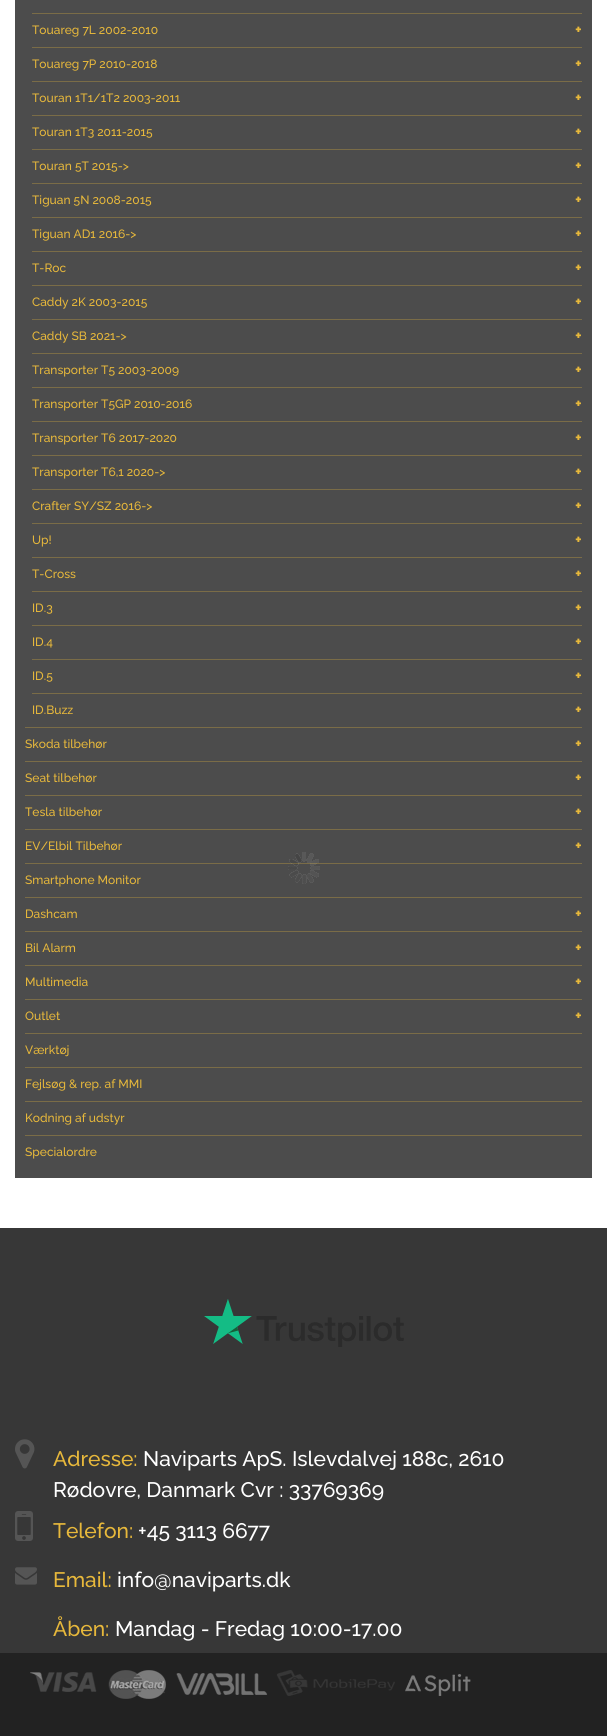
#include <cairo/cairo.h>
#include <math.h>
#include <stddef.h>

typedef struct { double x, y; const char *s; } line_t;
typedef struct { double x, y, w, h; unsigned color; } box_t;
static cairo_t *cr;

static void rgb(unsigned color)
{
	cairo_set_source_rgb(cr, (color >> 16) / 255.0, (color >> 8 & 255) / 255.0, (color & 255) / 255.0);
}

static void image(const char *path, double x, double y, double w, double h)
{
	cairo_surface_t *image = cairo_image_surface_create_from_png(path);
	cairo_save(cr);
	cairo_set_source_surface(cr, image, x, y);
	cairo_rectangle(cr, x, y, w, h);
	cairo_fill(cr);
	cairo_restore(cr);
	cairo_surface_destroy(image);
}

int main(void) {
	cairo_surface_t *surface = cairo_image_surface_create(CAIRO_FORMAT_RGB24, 607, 1736);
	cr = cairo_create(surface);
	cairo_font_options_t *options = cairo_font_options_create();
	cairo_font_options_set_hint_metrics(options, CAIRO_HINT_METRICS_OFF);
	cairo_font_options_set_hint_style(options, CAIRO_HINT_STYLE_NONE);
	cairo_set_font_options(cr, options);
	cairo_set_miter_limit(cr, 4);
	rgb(0xffffff);
	cairo_paint(cr);
	{
		static const box_t items[] = {
			{15, 0, 577, 1178, 0x4c4c4c},
			{32, 13, 550, 1, 0x7a6c47},
			{32, 47, 550, 1, 0x7a6c47},
			{32, 81, 550, 1, 0x7a6c47},
			{32, 115, 550, 1, 0x7a6c47},
			{32, 149, 550, 1, 0x7a6c47},
			{32, 183, 550, 1, 0x7a6c47},
			{32, 217, 550, 1, 0x7a6c47},
			{32, 251, 550, 1, 0x7a6c47},
			{32, 285, 550, 1, 0x7a6c47},
			{32, 319, 550, 1, 0x7a6c47},
			{32, 353, 550, 1, 0x7a6c47},
			{32, 387, 550, 1, 0x7a6c47},
			{32, 421, 550, 1, 0x7a6c47},
			{32, 455, 550, 1, 0x7a6c47},
			{32, 489, 550, 1, 0x7a6c47},
			{32, 523, 550, 1, 0x7a6c47},
			{32, 557, 550, 1, 0x7a6c47},
			{32, 591, 550, 1, 0x7a6c47},
			{32, 625, 550, 1, 0x7a6c47},
			{32, 659, 550, 1, 0x7a6c47},
			{32, 693, 550, 1, 0x7a6c47},
			{25, 727, 557, 1, 0x7a6c47},
			{25, 761, 557, 1, 0x7a6c47},
			{25, 795, 557, 1, 0x7a6c47},
			{25, 829, 557, 1, 0x7a6c47},
			{25, 863, 557, 1, 0x7a6c47},
			{25, 897, 557, 1, 0x7a6c47},
			{25, 931, 557, 1, 0x7a6c47},
			{25, 965, 557, 1, 0x7a6c47},
			{25, 999, 557, 1, 0x7a6c47},
			{25, 1033, 557, 1, 0x7a6c47},
			{25, 1067, 557, 1, 0x7a6c47},
			{25, 1101, 557, 1, 0x7a6c47},
			{25, 1135, 557, 1, 0x7a6c47},
			{0, 1228, 607, 425, 0x373737},
		};
		for (size_t i = 0; i < sizeof items / sizeof *items; i++) {
			rgb(items[i].color);
			cairo_rectangle(cr, items[i].x, items[i].y, items[i].w, items[i].h);
			cairo_fill(cr);
		}
	}
	image("img/1.png", 204, 1299, 200, 48);
	image("img/2.png", 15, 1439, 20, 30);
	image("img/3.png", 15, 1511, 18, 30);
	image("img/4.png", 15, 1567, 22, 18);
	rgb(0x222222);
	cairo_rectangle(cr, 0, 1653, 607, 83);
	cairo_fill(cr);
	image("img/5.png", 30, 1670, 441, 29);
	image("img/6.png", 288, 852, 32, 32);
	cairo_select_font_face(cr, "Raleway Medium", CAIRO_FONT_SLANT_NORMAL, CAIRO_FONT_WEIGHT_NORMAL);
	cairo_set_font_size(cr, 12);
	rgb(0xe7b83b);
	cairo_move_to(cr, 32, 34);
	cairo_show_text(cr, "Touareg 7L 2002-2010");
	cairo_select_font_face(cr, "Raleway", CAIRO_FONT_SLANT_NORMAL, CAIRO_FONT_WEIGHT_BOLD);
	cairo_set_font_size(cr, 16);
	cairo_move_to(cr, 575, 35);
	cairo_show_text(cr, "+");
	cairo_select_font_face(cr, "Raleway Medium", CAIRO_FONT_SLANT_NORMAL, CAIRO_FONT_WEIGHT_NORMAL);
	cairo_set_font_size(cr, 12);
	cairo_move_to(cr, 32, 68);
	cairo_show_text(cr, "Touareg 7P 2010-2018");
	cairo_select_font_face(cr, "Raleway", CAIRO_FONT_SLANT_NORMAL, CAIRO_FONT_WEIGHT_BOLD);
	cairo_set_font_size(cr, 16);
	cairo_move_to(cr, 575, 69);
	cairo_show_text(cr, "+");
	cairo_select_font_face(cr, "Raleway Medium", CAIRO_FONT_SLANT_NORMAL, CAIRO_FONT_WEIGHT_NORMAL);
	cairo_set_font_size(cr, 12);
	cairo_move_to(cr, 32, 102);
	cairo_show_text(cr, "Touran 1T1/1T2 2003-2011");
	cairo_select_font_face(cr, "Raleway", CAIRO_FONT_SLANT_NORMAL, CAIRO_FONT_WEIGHT_BOLD);
	cairo_set_font_size(cr, 16);
	cairo_move_to(cr, 575, 103);
	cairo_show_text(cr, "+");
	cairo_select_font_face(cr, "Raleway Medium", CAIRO_FONT_SLANT_NORMAL, CAIRO_FONT_WEIGHT_NORMAL);
	cairo_set_font_size(cr, 12);
	cairo_move_to(cr, 32, 136);
	cairo_show_text(cr, "Touran 1T3 2011-2015");
	cairo_select_font_face(cr, "Raleway", CAIRO_FONT_SLANT_NORMAL, CAIRO_FONT_WEIGHT_BOLD);
	cairo_set_font_size(cr, 16);
	cairo_move_to(cr, 575, 137);
	cairo_show_text(cr, "+");
	cairo_select_font_face(cr, "Raleway Medium", CAIRO_FONT_SLANT_NORMAL, CAIRO_FONT_WEIGHT_NORMAL);
	cairo_set_font_size(cr, 12);
	cairo_move_to(cr, 32, 170);
	cairo_show_text(cr, "Touran 5T 2015->");
	cairo_select_font_face(cr, "Raleway", CAIRO_FONT_SLANT_NORMAL, CAIRO_FONT_WEIGHT_BOLD);
	cairo_set_font_size(cr, 16);
	cairo_move_to(cr, 575, 171);
	cairo_show_text(cr, "+");
	cairo_select_font_face(cr, "Raleway Medium", CAIRO_FONT_SLANT_NORMAL, CAIRO_FONT_WEIGHT_NORMAL);
	cairo_set_font_size(cr, 12);
	cairo_move_to(cr, 32, 204);
	cairo_show_text(cr, "Tiguan 5N 2008-2015");
	cairo_select_font_face(cr, "Raleway", CAIRO_FONT_SLANT_NORMAL, CAIRO_FONT_WEIGHT_BOLD);
	cairo_set_font_size(cr, 16);
	cairo_move_to(cr, 575, 205);
	cairo_show_text(cr, "+");
	cairo_select_font_face(cr, "Raleway Medium", CAIRO_FONT_SLANT_NORMAL, CAIRO_FONT_WEIGHT_NORMAL);
	cairo_set_font_size(cr, 12);
	cairo_move_to(cr, 32, 238);
	cairo_show_text(cr, "Tiguan AD1 2016->");
	cairo_select_font_face(cr, "Raleway", CAIRO_FONT_SLANT_NORMAL, CAIRO_FONT_WEIGHT_BOLD);
	cairo_set_font_size(cr, 16);
	cairo_move_to(cr, 575, 239);
	cairo_show_text(cr, "+");
	cairo_select_font_face(cr, "Raleway Medium", CAIRO_FONT_SLANT_NORMAL, CAIRO_FONT_WEIGHT_NORMAL);
	cairo_set_font_size(cr, 12);
	cairo_move_to(cr, 32, 272);
	cairo_show_text(cr, "T-Roc");
	cairo_select_font_face(cr, "Raleway", CAIRO_FONT_SLANT_NORMAL, CAIRO_FONT_WEIGHT_BOLD);
	cairo_set_font_size(cr, 16);
	cairo_move_to(cr, 575, 273);
	cairo_show_text(cr, "+");
	cairo_select_font_face(cr, "Raleway Medium", CAIRO_FONT_SLANT_NORMAL, CAIRO_FONT_WEIGHT_NORMAL);
	cairo_set_font_size(cr, 12);
	cairo_move_to(cr, 32, 306);
	cairo_show_text(cr, "Caddy 2K 2003-2015");
	cairo_select_font_face(cr, "Raleway", CAIRO_FONT_SLANT_NORMAL, CAIRO_FONT_WEIGHT_BOLD);
	cairo_set_font_size(cr, 16);
	cairo_move_to(cr, 575, 307);
	cairo_show_text(cr, "+");
	cairo_select_font_face(cr, "Raleway Medium", CAIRO_FONT_SLANT_NORMAL, CAIRO_FONT_WEIGHT_NORMAL);
	cairo_set_font_size(cr, 12);
	cairo_move_to(cr, 32, 340);
	cairo_show_text(cr, "Caddy SB 2021->");
	cairo_select_font_face(cr, "Raleway", CAIRO_FONT_SLANT_NORMAL, CAIRO_FONT_WEIGHT_BOLD);
	cairo_set_font_size(cr, 16);
	cairo_move_to(cr, 575, 341);
	cairo_show_text(cr, "+");
	cairo_select_font_face(cr, "Raleway Medium", CAIRO_FONT_SLANT_NORMAL, CAIRO_FONT_WEIGHT_NORMAL);
	cairo_set_font_size(cr, 12);
	cairo_move_to(cr, 32, 374);
	cairo_show_text(cr, "Transporter T5 2003-2009");
	cairo_select_font_face(cr, "Raleway", CAIRO_FONT_SLANT_NORMAL, CAIRO_FONT_WEIGHT_BOLD);
	cairo_set_font_size(cr, 16);
	cairo_move_to(cr, 575, 375);
	cairo_show_text(cr, "+");
	cairo_select_font_face(cr, "Raleway Medium", CAIRO_FONT_SLANT_NORMAL, CAIRO_FONT_WEIGHT_NORMAL);
	cairo_set_font_size(cr, 12);
	cairo_move_to(cr, 32, 408);
	cairo_show_text(cr, "Transporter T5GP 2010-2016");
	cairo_select_font_face(cr, "Raleway", CAIRO_FONT_SLANT_NORMAL, CAIRO_FONT_WEIGHT_BOLD);
	cairo_set_font_size(cr, 16);
	cairo_move_to(cr, 575, 409);
	cairo_show_text(cr, "+");
	cairo_select_font_face(cr, "Raleway Medium", CAIRO_FONT_SLANT_NORMAL, CAIRO_FONT_WEIGHT_NORMAL);
	cairo_set_font_size(cr, 12);
	cairo_move_to(cr, 32, 442);
	cairo_show_text(cr, "Transporter T6 2017-2020");
	cairo_select_font_face(cr, "Raleway", CAIRO_FONT_SLANT_NORMAL, CAIRO_FONT_WEIGHT_BOLD);
	cairo_set_font_size(cr, 16);
	cairo_move_to(cr, 575, 443);
	cairo_show_text(cr, "+");
	cairo_select_font_face(cr, "Raleway Medium", CAIRO_FONT_SLANT_NORMAL, CAIRO_FONT_WEIGHT_NORMAL);
	cairo_set_font_size(cr, 12);
	cairo_move_to(cr, 32, 476);
	cairo_show_text(cr, "Transporter T6,1 2020->");
	cairo_select_font_face(cr, "Raleway", CAIRO_FONT_SLANT_NORMAL, CAIRO_FONT_WEIGHT_BOLD);
	cairo_set_font_size(cr, 16);
	cairo_move_to(cr, 575, 477);
	cairo_show_text(cr, "+");
	cairo_select_font_face(cr, "Raleway Medium", CAIRO_FONT_SLANT_NORMAL, CAIRO_FONT_WEIGHT_NORMAL);
	cairo_set_font_size(cr, 12);
	cairo_move_to(cr, 32, 510);
	cairo_show_text(cr, "Crafter SY/SZ 2016->");
	cairo_select_font_face(cr, "Raleway", CAIRO_FONT_SLANT_NORMAL, CAIRO_FONT_WEIGHT_BOLD);
	cairo_set_font_size(cr, 16);
	cairo_move_to(cr, 575, 511);
	cairo_show_text(cr, "+");
	cairo_select_font_face(cr, "Raleway Medium", CAIRO_FONT_SLANT_NORMAL, CAIRO_FONT_WEIGHT_NORMAL);
	cairo_set_font_size(cr, 12);
	cairo_move_to(cr, 32, 544);
	cairo_show_text(cr, "Up!");
	cairo_select_font_face(cr, "Raleway", CAIRO_FONT_SLANT_NORMAL, CAIRO_FONT_WEIGHT_BOLD);
	cairo_set_font_size(cr, 16);
	cairo_move_to(cr, 575, 545);
	cairo_show_text(cr, "+");
	cairo_select_font_face(cr, "Raleway Medium", CAIRO_FONT_SLANT_NORMAL, CAIRO_FONT_WEIGHT_NORMAL);
	cairo_set_font_size(cr, 12);
	cairo_move_to(cr, 32, 578);
	cairo_show_text(cr, "T-Cross");
	cairo_select_font_face(cr, "Raleway", CAIRO_FONT_SLANT_NORMAL, CAIRO_FONT_WEIGHT_BOLD);
	cairo_set_font_size(cr, 16);
	cairo_move_to(cr, 575, 579);
	cairo_show_text(cr, "+");
	cairo_select_font_face(cr, "Raleway Medium", CAIRO_FONT_SLANT_NORMAL, CAIRO_FONT_WEIGHT_NORMAL);
	cairo_set_font_size(cr, 12);
	cairo_move_to(cr, 32, 612);
	cairo_show_text(cr, "ID.3");
	cairo_select_font_face(cr, "Raleway", CAIRO_FONT_SLANT_NORMAL, CAIRO_FONT_WEIGHT_BOLD);
	cairo_set_font_size(cr, 16);
	cairo_move_to(cr, 575, 613);
	cairo_show_text(cr, "+");
	cairo_select_font_face(cr, "Raleway Medium", CAIRO_FONT_SLANT_NORMAL, CAIRO_FONT_WEIGHT_NORMAL);
	cairo_set_font_size(cr, 12);
	cairo_move_to(cr, 32, 646);
	cairo_show_text(cr, "ID.4");
	cairo_select_font_face(cr, "Raleway", CAIRO_FONT_SLANT_NORMAL, CAIRO_FONT_WEIGHT_BOLD);
	cairo_set_font_size(cr, 16);
	cairo_move_to(cr, 575, 647);
	cairo_show_text(cr, "+");
	cairo_select_font_face(cr, "Raleway Medium", CAIRO_FONT_SLANT_NORMAL, CAIRO_FONT_WEIGHT_NORMAL);
	cairo_set_font_size(cr, 12);
	cairo_move_to(cr, 32, 680);
	cairo_show_text(cr, "ID.5");
	cairo_select_font_face(cr, "Raleway", CAIRO_FONT_SLANT_NORMAL, CAIRO_FONT_WEIGHT_BOLD);
	cairo_set_font_size(cr, 16);
	cairo_move_to(cr, 575, 681);
	cairo_show_text(cr, "+");
	cairo_select_font_face(cr, "Raleway Medium", CAIRO_FONT_SLANT_NORMAL, CAIRO_FONT_WEIGHT_NORMAL);
	cairo_set_font_size(cr, 12);
	cairo_move_to(cr, 32, 714);
	cairo_show_text(cr, "ID.Buzz");
	cairo_select_font_face(cr, "Raleway", CAIRO_FONT_SLANT_NORMAL, CAIRO_FONT_WEIGHT_BOLD);
	cairo_set_font_size(cr, 16);
	cairo_move_to(cr, 575, 715);
	cairo_show_text(cr, "+");
	cairo_select_font_face(cr, "Raleway Medium", CAIRO_FONT_SLANT_NORMAL, CAIRO_FONT_WEIGHT_NORMAL);
	cairo_set_font_size(cr, 12);
	cairo_move_to(cr, 25, 748);
	cairo_show_text(cr, "Skoda tilbehør");
	cairo_select_font_face(cr, "Raleway", CAIRO_FONT_SLANT_NORMAL, CAIRO_FONT_WEIGHT_BOLD);
	cairo_set_font_size(cr, 16);
	cairo_move_to(cr, 575, 749);
	cairo_show_text(cr, "+");
	cairo_select_font_face(cr, "Raleway Medium", CAIRO_FONT_SLANT_NORMAL, CAIRO_FONT_WEIGHT_NORMAL);
	cairo_set_font_size(cr, 12);
	cairo_move_to(cr, 25, 782);
	cairo_show_text(cr, "Seat tilbehør");
	cairo_select_font_face(cr, "Raleway", CAIRO_FONT_SLANT_NORMAL, CAIRO_FONT_WEIGHT_BOLD);
	cairo_set_font_size(cr, 16);
	cairo_move_to(cr, 575, 783);
	cairo_show_text(cr, "+");
	cairo_select_font_face(cr, "Raleway Medium", CAIRO_FONT_SLANT_NORMAL, CAIRO_FONT_WEIGHT_NORMAL);
	cairo_set_font_size(cr, 12);
	cairo_move_to(cr, 25, 816);
	cairo_show_text(cr, "Tesla tilbehør");
	cairo_select_font_face(cr, "Raleway", CAIRO_FONT_SLANT_NORMAL, CAIRO_FONT_WEIGHT_BOLD);
	cairo_set_font_size(cr, 16);
	cairo_move_to(cr, 575, 817);
	cairo_show_text(cr, "+");
	cairo_select_font_face(cr, "Raleway Medium", CAIRO_FONT_SLANT_NORMAL, CAIRO_FONT_WEIGHT_NORMAL);
	cairo_set_font_size(cr, 12);
	cairo_move_to(cr, 25, 850);
	cairo_show_text(cr, "EV/Elbil Tilbehør");
	cairo_select_font_face(cr, "Raleway", CAIRO_FONT_SLANT_NORMAL, CAIRO_FONT_WEIGHT_BOLD);
	cairo_set_font_size(cr, 16);
	cairo_move_to(cr, 575, 851);
	cairo_show_text(cr, "+");
	cairo_select_font_face(cr, "Raleway Medium", CAIRO_FONT_SLANT_NORMAL, CAIRO_FONT_WEIGHT_NORMAL);
	cairo_set_font_size(cr, 12);
	cairo_move_to(cr, 25, 884);
	cairo_show_text(cr, "Smartphone Monitor");
	cairo_move_to(cr, 25, 918);
	cairo_show_text(cr, "Dashcam");
	cairo_select_font_face(cr, "Raleway", CAIRO_FONT_SLANT_NORMAL, CAIRO_FONT_WEIGHT_BOLD);
	cairo_set_font_size(cr, 16);
	cairo_move_to(cr, 575, 919);
	cairo_show_text(cr, "+");
	cairo_select_font_face(cr, "Raleway Medium", CAIRO_FONT_SLANT_NORMAL, CAIRO_FONT_WEIGHT_NORMAL);
	cairo_set_font_size(cr, 12);
	cairo_move_to(cr, 25, 952);
	cairo_show_text(cr, "Bil Alarm");
	cairo_select_font_face(cr, "Raleway", CAIRO_FONT_SLANT_NORMAL, CAIRO_FONT_WEIGHT_BOLD);
	cairo_set_font_size(cr, 16);
	cairo_move_to(cr, 575, 953);
	cairo_show_text(cr, "+");
	cairo_select_font_face(cr, "Raleway Medium", CAIRO_FONT_SLANT_NORMAL, CAIRO_FONT_WEIGHT_NORMAL);
	cairo_set_font_size(cr, 12);
	cairo_move_to(cr, 25, 986);
	cairo_show_text(cr, "Multimedia");
	cairo_select_font_face(cr, "Raleway", CAIRO_FONT_SLANT_NORMAL, CAIRO_FONT_WEIGHT_BOLD);
	cairo_set_font_size(cr, 16);
	cairo_move_to(cr, 575, 987);
	cairo_show_text(cr, "+");
	cairo_select_font_face(cr, "Raleway Medium", CAIRO_FONT_SLANT_NORMAL, CAIRO_FONT_WEIGHT_NORMAL);
	cairo_set_font_size(cr, 12);
	cairo_move_to(cr, 25, 1020);
	cairo_show_text(cr, "Outlet");
	cairo_select_font_face(cr, "Raleway", CAIRO_FONT_SLANT_NORMAL, CAIRO_FONT_WEIGHT_BOLD);
	cairo_set_font_size(cr, 16);
	cairo_move_to(cr, 575, 1021);
	cairo_show_text(cr, "+");
	cairo_select_font_face(cr, "Raleway Medium", CAIRO_FONT_SLANT_NORMAL, CAIRO_FONT_WEIGHT_NORMAL);
	cairo_set_font_size(cr, 12);
	{
		static const line_t items[] = {
			{25, 1054, "Værktøj"},
			{25, 1088, "Fejlsøg & rep. af MMI"},
			{25, 1122, "Kodning af udstyr"},
			{25, 1156, "Specialordre"},
		};
		for (size_t i = 0; i < sizeof items / sizeof *items; i++) {
			cairo_move_to(cr, items[i].x, items[i].y);
			cairo_show_text(cr, items[i].s);
		}
	}
	cairo_set_font_size(cr, 21);
	cairo_move_to(cr, 53, 1466);
	cairo_show_text(cr, "Adresse:");
	rgb(0xffffff);
	cairo_move_to(cr, 143, 1466);
	cairo_show_text(cr, "Naviparts ApS. Islevdalvej 188c, 2610");
	cairo_move_to(cr, 53, 1497);
	cairo_show_text(cr, "Rødovre, Danmark Cvr : 33769369");
	rgb(0xe7b83b);
	cairo_move_to(cr, 53, 1538);
	cairo_show_text(cr, "Telefon:");
	rgb(0xffffff);
	cairo_move_to(cr, 138, 1538);
	cairo_show_text(cr, "+45 3113 6677");
	rgb(0xe7b83b);
	cairo_move_to(cr, 53, 1587);
	cairo_show_text(cr, "Email:");
	rgb(0xffffff);
	cairo_move_to(cr, 117, 1587);
	cairo_show_text(cr, "info@naviparts.dk");
	rgb(0xe7b83b);
	cairo_move_to(cr, 53, 1636);
	cairo_show_text(cr, "Åben:");
	rgb(0xffffff);
	cairo_move_to(cr, 115, 1636);
	cairo_show_text(cr, "Mandag - Fredag 10:00-17.00");
	cairo_surface_write_to_png(surface, "page.png");
	cairo_font_options_destroy(options);
	cairo_destroy(cr);
	cairo_surface_destroy(surface);
	return 0;
}
